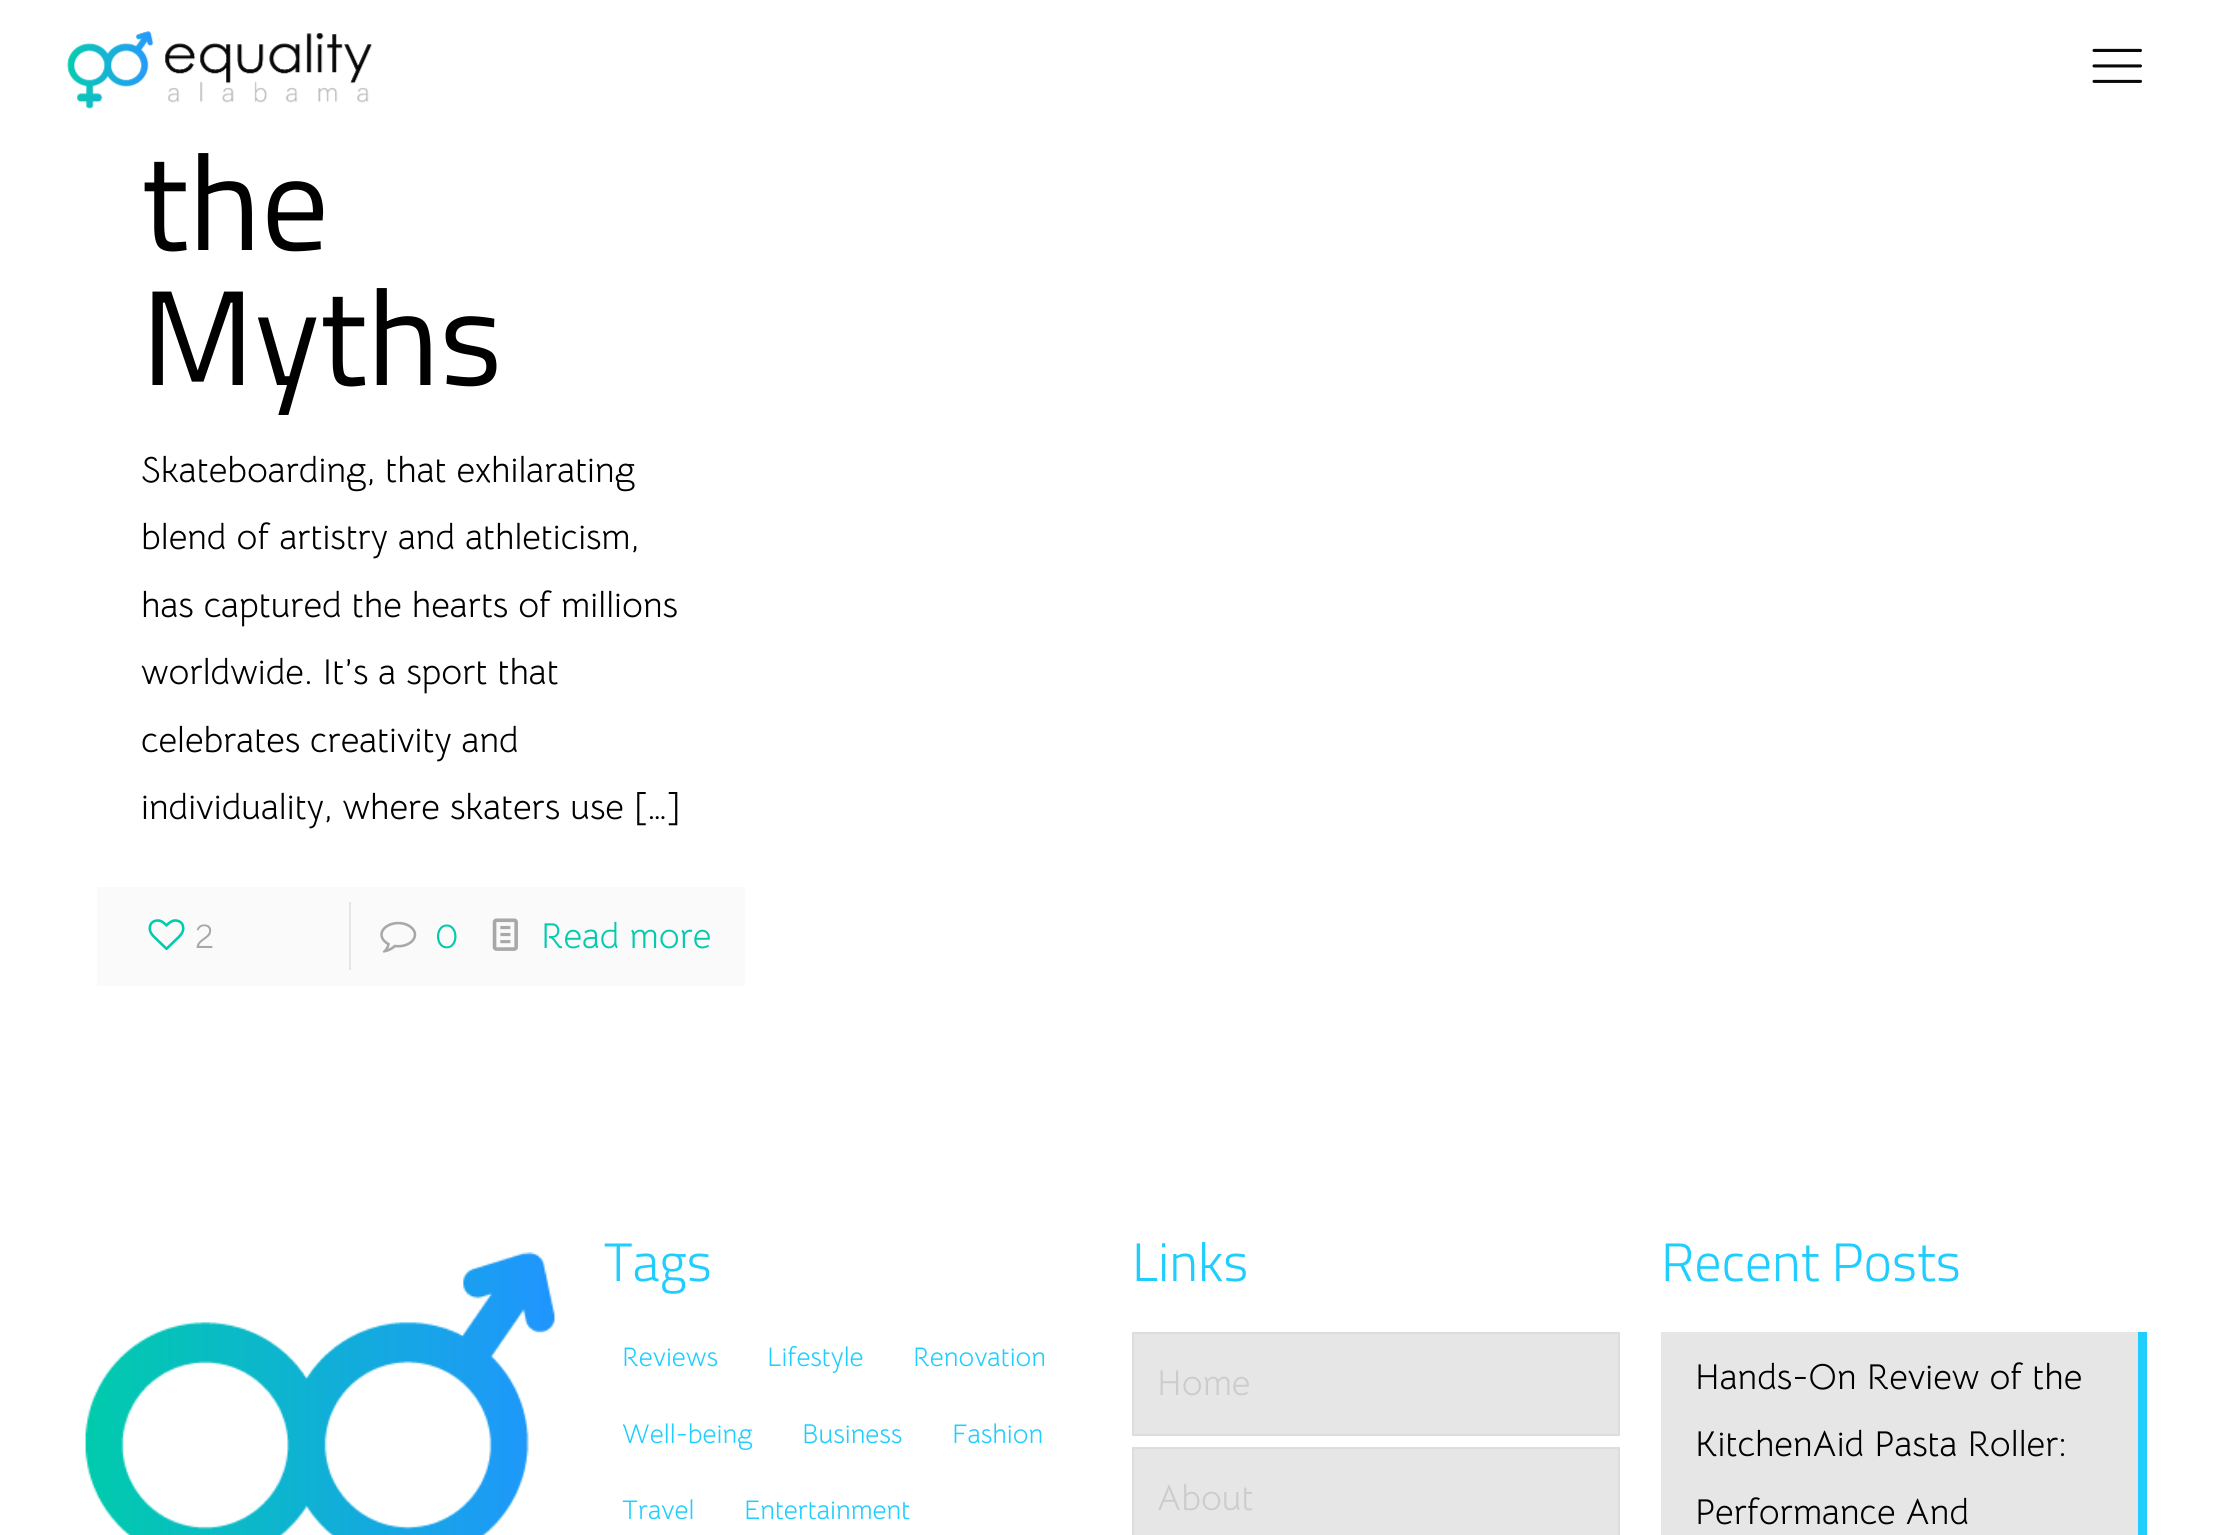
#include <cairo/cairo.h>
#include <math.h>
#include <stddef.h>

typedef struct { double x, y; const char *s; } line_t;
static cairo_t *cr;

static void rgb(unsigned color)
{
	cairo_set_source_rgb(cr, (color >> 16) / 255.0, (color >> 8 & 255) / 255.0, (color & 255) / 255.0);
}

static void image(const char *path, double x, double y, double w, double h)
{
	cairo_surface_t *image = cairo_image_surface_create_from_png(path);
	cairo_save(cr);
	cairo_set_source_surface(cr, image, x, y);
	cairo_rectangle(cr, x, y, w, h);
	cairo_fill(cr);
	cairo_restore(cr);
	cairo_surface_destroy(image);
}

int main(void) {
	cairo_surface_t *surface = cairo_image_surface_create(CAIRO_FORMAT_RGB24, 2222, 1535);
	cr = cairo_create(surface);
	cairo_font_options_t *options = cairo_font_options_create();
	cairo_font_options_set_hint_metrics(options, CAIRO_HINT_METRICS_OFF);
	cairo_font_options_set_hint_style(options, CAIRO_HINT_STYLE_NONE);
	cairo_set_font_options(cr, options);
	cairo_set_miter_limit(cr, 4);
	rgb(0xffffff);
	cairo_paint(cr);
	image("img/1.png", 67, 31, 305, 78);
	image("img/2.png", 2092, 48, 50, 35);
	rgb(0xfafafa);
	cairo_rectangle(cr, 97, 887, 648, 99);
	cairo_fill(cr);
	image("img/3.png", 148, 919, 37, 32);
	rgb(0xe6e6e6);
	cairo_rectangle(cr, 349, 902, 2, 68);
	cairo_fill(cr);
	image("img/4.png", 380, 921, 37, 32);
	image("img/5.png", 492, 918, 26, 33);
	image("img/6.png", 85, 1252, 470, 283);
	cairo_rectangle(cr, 1133, 1333, 486, 102);
	cairo_fill_preserve(cr);
	rgb(0xdddddd);
	cairo_stroke(cr);
	rgb(0xe6e6e6);
	cairo_rectangle(cr, 1133, 1448, 486, 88);
	cairo_fill_preserve(cr);
	rgb(0xdddddd);
	cairo_stroke(cr);
	rgb(0xe6e6e6);
	cairo_rectangle(cr, 1661, 1332, 477, 203);
	cairo_fill(cr);
	rgb(0x1fcdff);
	cairo_rectangle(cr, 2138, 1332, 9, 203);
	cairo_fill(cr);
	cairo_select_font_face(cr, "Titillium Web", CAIRO_FONT_SLANT_NORMAL, CAIRO_FONT_WEIGHT_NORMAL);
	cairo_set_font_size(cr, 135);
	rgb(0x000000);
	cairo_move_to(cr, 141, 250);
	cairo_show_text(cr, "the");
	cairo_move_to(cr, 141, 385);
	cairo_show_text(cr, "Myths");
	cairo_select_font_face(cr, "Bellota Text", CAIRO_FONT_SLANT_NORMAL, CAIRO_FONT_WEIGHT_NORMAL);
	cairo_set_font_size(cr, 36);
	{
		static const line_t items[] = {
			{141, 482, "Skateboarding, that exhilarating"},
			{141, 549, "blend of artistry and athleticism,"},
			{141, 617, "has captured the hearts of millions"},
			{141, 684, "worldwide. It’s a sport that"},
			{141, 752, "celebrates creativity and"},
			{141, 819, "individuality, where skaters use […]"},
		};
		for (size_t i = 0; i < sizeof items / sizeof *items; i++) {
			cairo_move_to(cr, items[i].x, items[i].y);
			cairo_show_text(cr, items[i].s);
		}
	}
	rgb(0xa8a8a8);
	cairo_move_to(cr, 195, 948);
	cairo_show_text(cr, "2");
	rgb(0x00cbac);
	cairo_move_to(cr, 435, 948);
	cairo_show_text(cr, "0");
	cairo_move_to(cr, 541, 948);
	cairo_show_text(cr, "Read more");
	cairo_select_font_face(cr, "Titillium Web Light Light", CAIRO_FONT_SLANT_NORMAL, CAIRO_FONT_WEIGHT_NORMAL);
	cairo_set_font_size(cr, 54);
	rgb(0x1fcdff);
	cairo_move_to(cr, 604, 1281);
	cairo_show_text(cr, "Tags");
	cairo_select_font_face(cr, "Bellota Text", CAIRO_FONT_SLANT_NORMAL, CAIRO_FONT_WEIGHT_NORMAL);
	cairo_set_font_size(cr, 27);
	{
		static const line_t items[] = {
			{622, 1366, "Reviews"},
			{767, 1366, "Lifestyle"},
			{913, 1366, "Renovation"},
			{622, 1443, "Well-being"},
			{802, 1443, "Business"},
			{952, 1443, "Fashion"},
			{622, 1519, "Travel"},
			{744, 1519, "Entertainment"},
		};
		for (size_t i = 0; i < sizeof items / sizeof *items; i++) {
			cairo_move_to(cr, items[i].x, items[i].y);
			cairo_show_text(cr, items[i].s);
		}
	}
	cairo_select_font_face(cr, "Titillium Web Light Light", CAIRO_FONT_SLANT_NORMAL, CAIRO_FONT_WEIGHT_NORMAL);
	cairo_set_font_size(cr, 54);
	cairo_move_to(cr, 1132, 1281);
	cairo_show_text(cr, "Links");
	cairo_select_font_face(cr, "Bellota Text", CAIRO_FONT_SLANT_NORMAL, CAIRO_FONT_WEIGHT_NORMAL);
	cairo_set_font_size(cr, 36);
	rgb(0xcccccc);
	cairo_move_to(cr, 1157, 1395);
	cairo_show_text(cr, "Home");
	cairo_move_to(cr, 1157, 1510);
	cairo_show_text(cr, "About");
	cairo_select_font_face(cr, "Titillium Web Light Light", CAIRO_FONT_SLANT_NORMAL, CAIRO_FONT_WEIGHT_NORMAL);
	cairo_set_font_size(cr, 54);
	rgb(0x1fcdff);
	cairo_move_to(cr, 1661, 1281);
	cairo_show_text(cr, "Recent Posts");
	cairo_select_font_face(cr, "Bellota Text", CAIRO_FONT_SLANT_NORMAL, CAIRO_FONT_WEIGHT_NORMAL);
	cairo_set_font_size(cr, 36);
	rgb(0x000000);
	{
		static const line_t items[] = {
			{1695, 1389, "Hands-On Review of the"},
			{1695, 1456, "KitchenAid Pasta Roller:"},
			{1695, 1524, "Performance And"},
		};
		for (size_t i = 0; i < sizeof items / sizeof *items; i++) {
			cairo_move_to(cr, items[i].x, items[i].y);
			cairo_show_text(cr, items[i].s);
		}
	}
	cairo_surface_write_to_png(surface, "page.png");
	cairo_font_options_destroy(options);
	cairo_destroy(cr);
	cairo_surface_destroy(surface);
	return 0;
}
